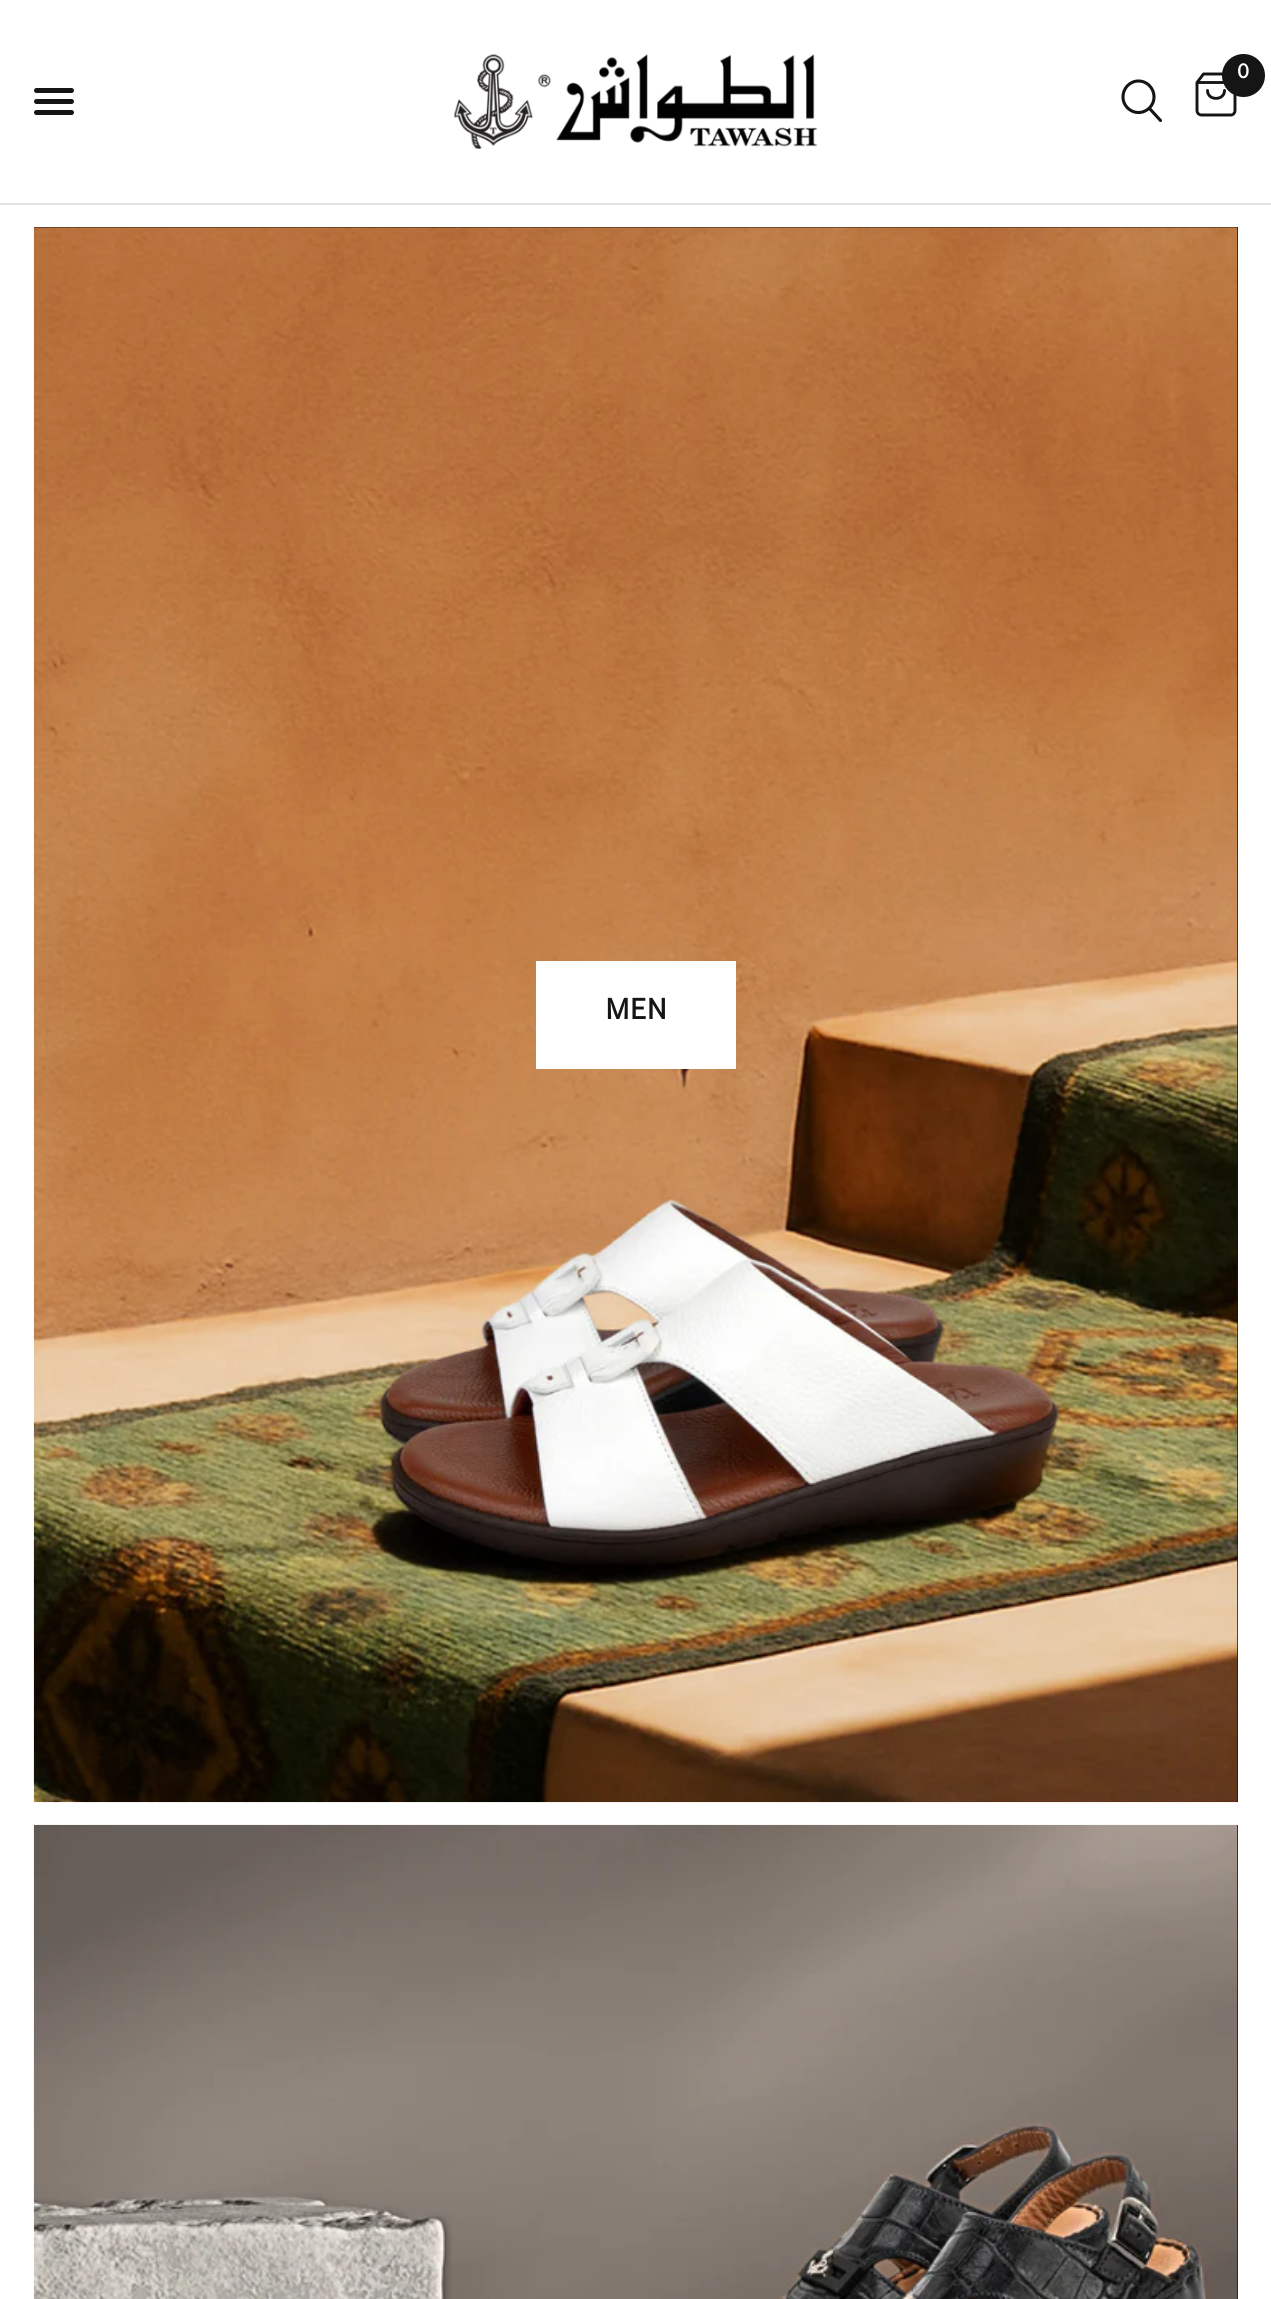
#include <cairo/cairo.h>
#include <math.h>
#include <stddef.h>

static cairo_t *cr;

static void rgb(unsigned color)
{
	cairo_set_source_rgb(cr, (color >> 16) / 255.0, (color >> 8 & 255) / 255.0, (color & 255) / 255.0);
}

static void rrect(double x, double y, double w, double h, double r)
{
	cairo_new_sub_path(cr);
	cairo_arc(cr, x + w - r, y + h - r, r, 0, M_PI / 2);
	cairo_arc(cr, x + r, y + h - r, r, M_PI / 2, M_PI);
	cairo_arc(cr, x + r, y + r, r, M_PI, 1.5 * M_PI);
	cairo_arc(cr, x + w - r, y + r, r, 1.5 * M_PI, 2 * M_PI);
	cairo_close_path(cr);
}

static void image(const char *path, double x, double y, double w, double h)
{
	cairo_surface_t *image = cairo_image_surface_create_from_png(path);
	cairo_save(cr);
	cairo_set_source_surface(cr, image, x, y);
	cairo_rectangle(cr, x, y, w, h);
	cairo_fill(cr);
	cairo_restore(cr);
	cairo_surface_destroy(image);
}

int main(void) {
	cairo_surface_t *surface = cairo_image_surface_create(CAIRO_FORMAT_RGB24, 1271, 2299);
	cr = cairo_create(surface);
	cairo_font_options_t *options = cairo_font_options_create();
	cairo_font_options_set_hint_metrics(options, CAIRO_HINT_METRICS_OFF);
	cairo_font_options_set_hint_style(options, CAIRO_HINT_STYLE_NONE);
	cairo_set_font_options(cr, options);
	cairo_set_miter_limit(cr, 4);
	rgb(0xffffff);
	cairo_paint(cr);
	rgb(0xe2e2e2);
	cairo_rectangle(cr, 0, 203, 1271, 2);
	cairo_fill(cr);
	image("img/1.png", 454, 54, 363, 95);
	cairo_new_path(cr);
	cairo_move_to(cr, 1197, 82.5);
	cairo_line_to(cr, 1203.5, 74);
	cairo_line_to(cr, 1229, 74);
	cairo_line_to(cr, 1235, 82.5);
	cairo_move_to(cr, 1197, 82.5);
	cairo_line_to(cr, 1197, 110.5);
	cairo_curve_to(cr, 1197, 113, 1199, 115, 1201.5, 115);
	cairo_line_to(cr, 1231, 115);
	cairo_curve_to(cr, 1233, 115, 1235, 113, 1235, 110.5);
	cairo_line_to(cr, 1235, 82.5);
	cairo_move_to(cr, 1197, 82.5);
	cairo_line_to(cr, 1235, 82.5);
	cairo_move_to(cr, 1224.5, 90.5);
	cairo_curve_to(cr, 1224.5, 101, 1207.5, 101, 1207.5, 90.5);
	rgb(0x151515);
	cairo_set_line_width(cr, 2.9);
	cairo_set_line_cap(cr, CAIRO_LINE_CAP_ROUND);
	cairo_set_line_join(cr, CAIRO_LINE_JOIN_ROUND);
	cairo_stroke(cr);
	cairo_arc(cr, 1243.5, 75.5, 21.5, 0, 2 * M_PI);
	cairo_fill(cr);
	cairo_new_path(cr);
	cairo_move_to(cr, 1150, 109);
	cairo_line_to(cr, 1160.5, 120.5);
	cairo_move_to(cr, 1154, 97);
	cairo_curve_to(cr, 1154, 105.5, 1147, 112.5, 1138.5, 112.5);
	cairo_curve_to(cr, 1130, 112.5, 1123, 105.5, 1123, 97);
	cairo_curve_to(cr, 1123, 88, 1130, 81, 1138.5, 81);
	cairo_curve_to(cr, 1147, 81, 1154, 88, 1154, 97);
	cairo_close_path(cr);
	cairo_set_line_width(cr, 3.1);
	cairo_stroke(cr);
	rrect(34, 88, 40, 5, 2.5);
	cairo_fill(cr);
	rrect(34, 99, 40, 5, 2.5);
	cairo_fill(cr);
	rrect(34, 110, 40, 5, 2.5);
	cairo_fill(cr);
	cairo_rectangle(cr, 34, 227, 1204, 1575);
	cairo_fill(cr);
	image("img/2.png", 33, 227, 1205, 1576);
	rgb(0xffffff);
	cairo_rectangle(cr, 536, 961, 200, 108);
	cairo_fill(cr);
	rgb(0x151515);
	cairo_rectangle(cr, 1237, 1825, 1, 474);
	cairo_fill(cr);
	image("img/3.png", 33, 1824, 1205, 475);
	cairo_select_font_face(cr, "Tajawal", CAIRO_FONT_SLANT_NORMAL, CAIRO_FONT_WEIGHT_BOLD);
	cairo_set_font_size(cr, 22);
	rgb(0xffffff);
	cairo_move_to(cr, 1237, 78);
	cairo_show_text(cr, "0");
	cairo_set_font_size(cr, 32);
	rgb(0x151515);
	cairo_move_to(cr, 605, 1019);
	cairo_show_text(cr, "MEN");
	cairo_surface_write_to_png(surface, "page.png");
	cairo_font_options_destroy(options);
	cairo_destroy(cr);
	cairo_surface_destroy(surface);
	return 0;
}
